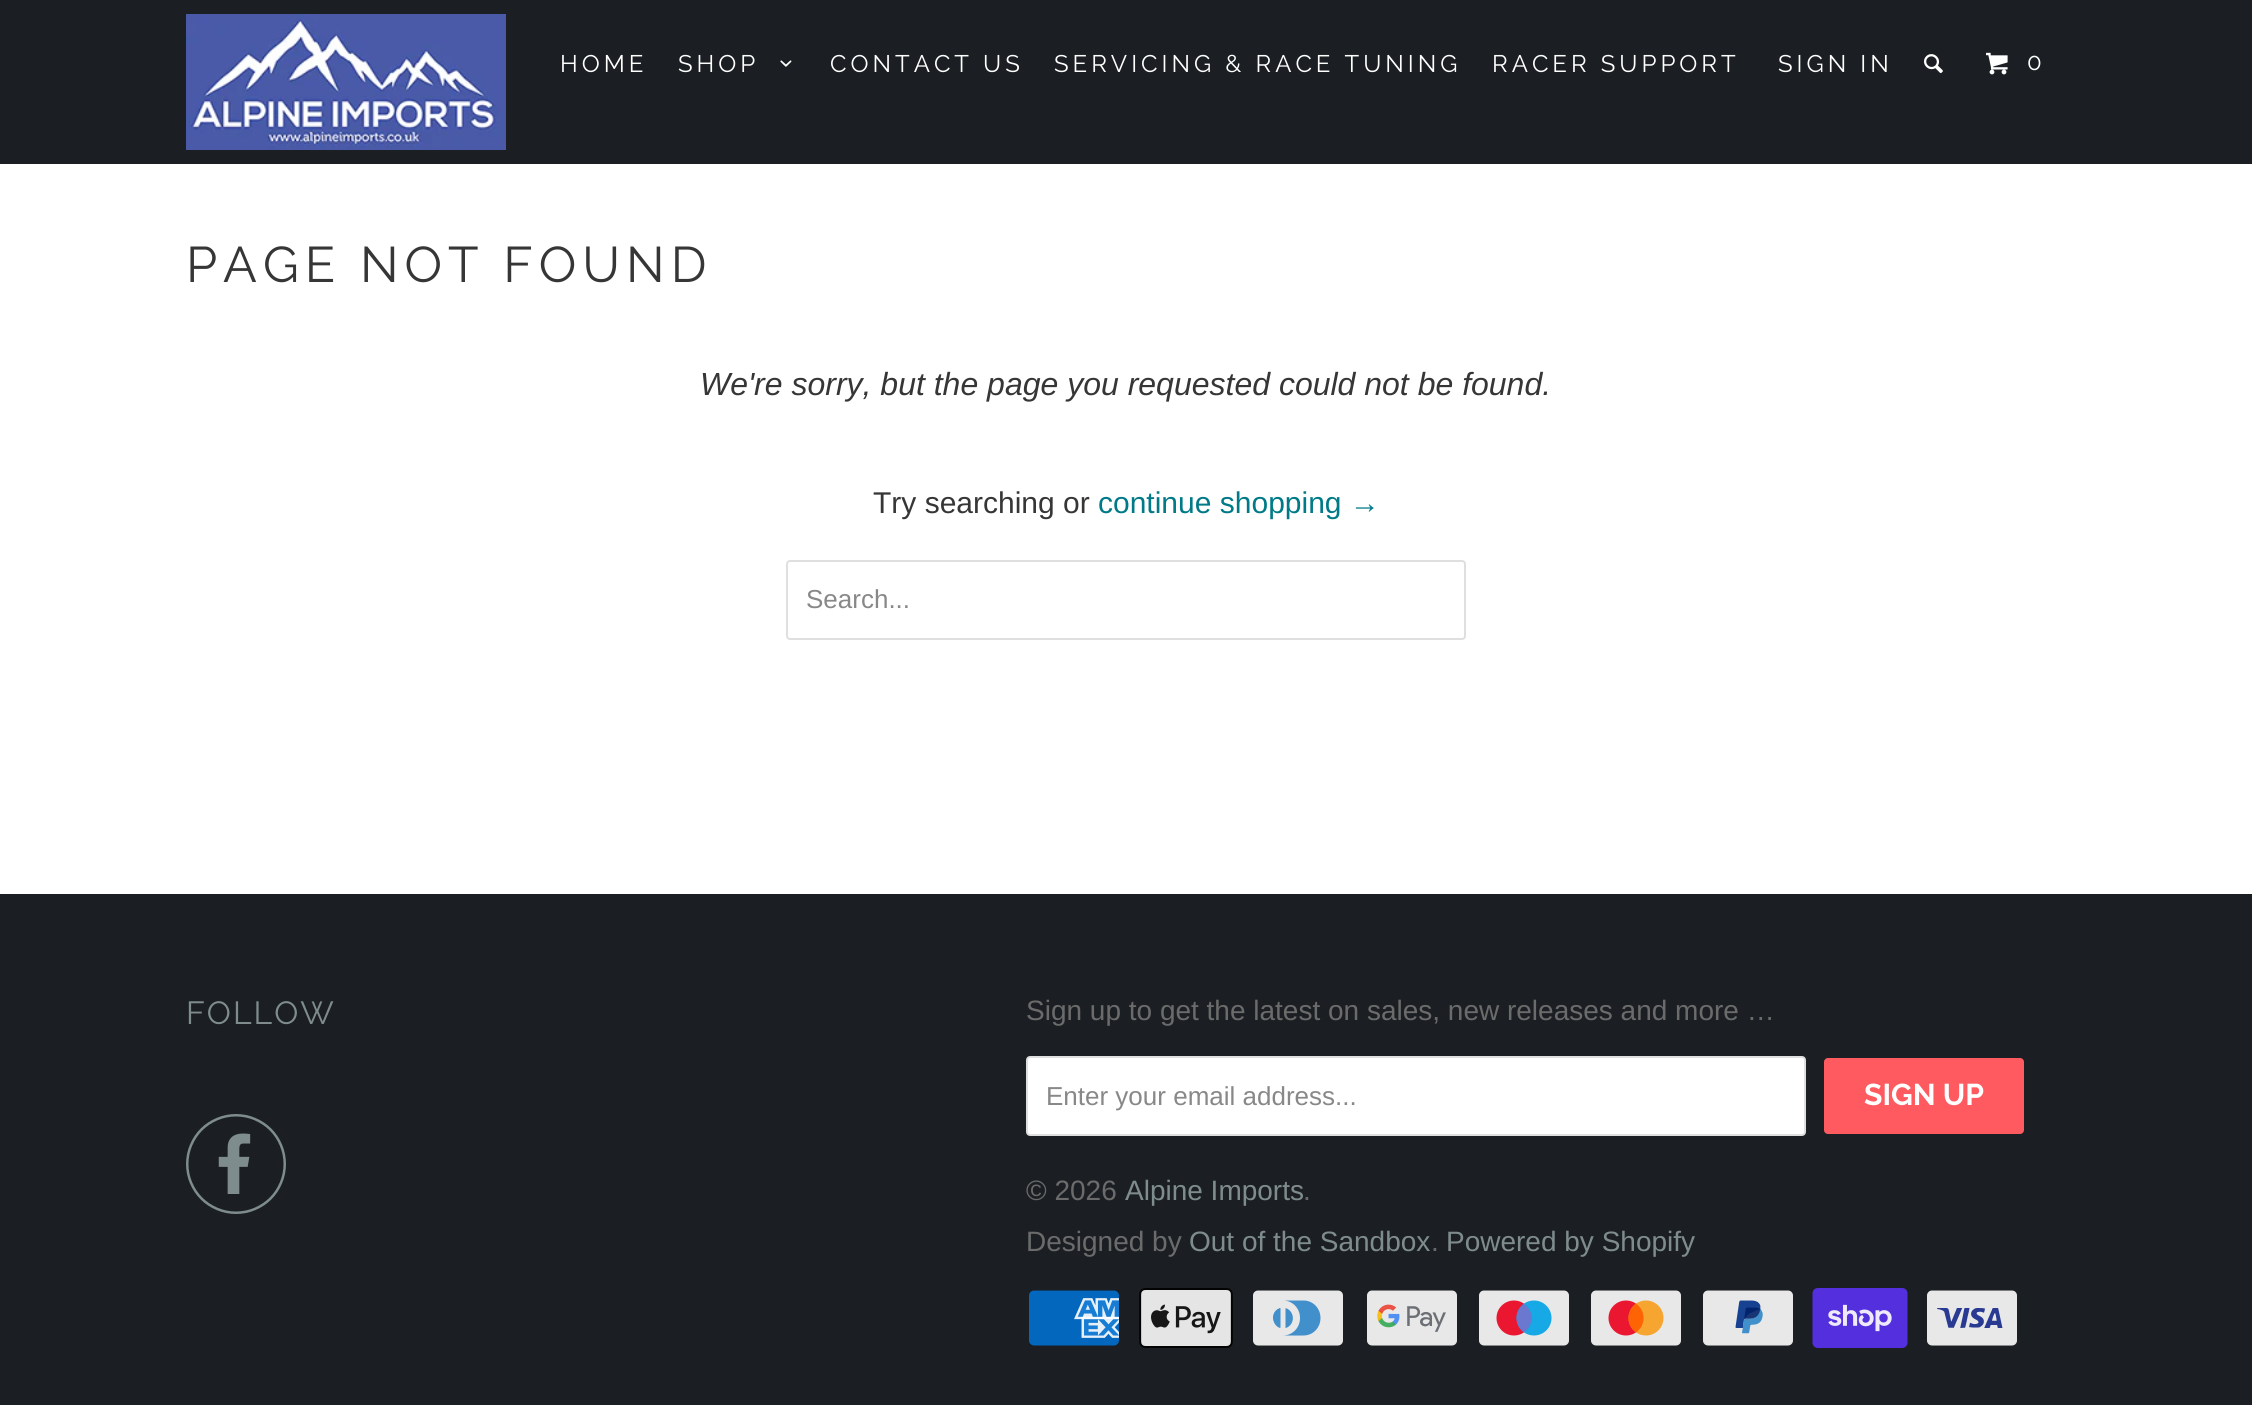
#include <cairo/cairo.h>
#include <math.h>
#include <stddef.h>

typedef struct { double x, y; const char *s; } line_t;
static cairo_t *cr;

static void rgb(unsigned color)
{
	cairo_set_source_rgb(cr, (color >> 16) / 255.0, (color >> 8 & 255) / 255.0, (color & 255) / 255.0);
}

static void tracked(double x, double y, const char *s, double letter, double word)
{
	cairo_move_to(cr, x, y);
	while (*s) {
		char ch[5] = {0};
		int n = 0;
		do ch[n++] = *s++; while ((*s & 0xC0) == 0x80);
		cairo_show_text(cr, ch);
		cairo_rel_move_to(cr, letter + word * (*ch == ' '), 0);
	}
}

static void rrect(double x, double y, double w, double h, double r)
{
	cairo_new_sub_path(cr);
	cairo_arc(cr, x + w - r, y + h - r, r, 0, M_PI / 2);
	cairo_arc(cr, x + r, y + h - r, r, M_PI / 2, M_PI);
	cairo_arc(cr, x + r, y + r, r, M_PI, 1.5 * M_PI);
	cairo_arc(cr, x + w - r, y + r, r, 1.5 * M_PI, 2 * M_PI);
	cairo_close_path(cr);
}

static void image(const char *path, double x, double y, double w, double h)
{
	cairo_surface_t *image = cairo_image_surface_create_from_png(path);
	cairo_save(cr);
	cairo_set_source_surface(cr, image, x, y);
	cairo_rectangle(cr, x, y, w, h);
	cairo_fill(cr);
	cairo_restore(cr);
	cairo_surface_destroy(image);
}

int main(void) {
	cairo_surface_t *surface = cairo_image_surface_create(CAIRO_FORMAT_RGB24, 2252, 1405);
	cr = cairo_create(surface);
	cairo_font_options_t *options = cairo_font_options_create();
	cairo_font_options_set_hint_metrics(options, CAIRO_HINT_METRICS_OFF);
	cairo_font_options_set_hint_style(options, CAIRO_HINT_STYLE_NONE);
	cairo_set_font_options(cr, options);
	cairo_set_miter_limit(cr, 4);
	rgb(0xffffff);
	cairo_paint(cr);
	rgb(0x1b1f23);
	cairo_rectangle(cr, 0, 0, 2252, 164);
	cairo_fill(cr);
	image("img/1.png", 186, 14, 320, 136);
	image("img/2.png", 780, 60, 12, 7);
	image("img/3.png", 1924, 54, 19, 20);
	image("img/4.png", 1986, 52, 22, 23);
	rrect(787, 561, 678, 78, 3);
	rgb(0xdfdfdf);
	cairo_stroke(cr);
	rgb(0x1b1f23);
	cairo_rectangle(cr, 0, 894, 2252, 511);
	cairo_fill(cr);
	image("img/5.png", 186, 1114, 100, 100);
	rgb(0xffffff);
	rrect(1027, 1057, 778, 78, 3);
	cairo_fill_preserve(cr);
	rgb(0xdfdfdf);
	cairo_stroke(cr);
	rgb(0xff5a5f);
	rrect(1824, 1058, 200, 76, 4);
	cairo_fill(cr);
	image("img/6.png", 1029, 1290, 90, 56);
	image("img/7.png", 1139, 1288, 94, 60);
	image("img/8.png", 1253, 1290, 90, 56);
	image("img/9.png", 1367, 1290, 90, 56);
	image("img/10.png", 1479, 1290, 90, 56);
	image("img/11.png", 1591, 1290, 90, 56);
	image("img/12.png", 1703, 1290, 90, 56);
	image("img/13.png", 1812, 1288, 96, 60);
	image("img/14.png", 1927, 1290, 90, 56);
	cairo_select_font_face(cr, "Raleway", CAIRO_FONT_SLANT_NORMAL, CAIRO_FONT_WEIGHT_NORMAL);
	cairo_set_font_size(cr, 24);
	rgb(0xffffff);
	{
		static const line_t items[] = {
			{560, 72, "HOME"},
			{678, 72, "SHOP"},
			{830, 72, "CONTACT US"},
			{1054, 72, "SERVICING & RACE TUNING"},
			{1492, 72, "RACER SUPPORT"},
			{1778, 72, "SIGN IN"},
			{2027, 70, "0"},
		};
		for (size_t i = 0; i < sizeof items / sizeof *items; i++) {
			tracked(items[i].x, items[i].y, items[i].s, 4, 0);
		}
	}
	cairo_set_font_size(cr, 50);
	rgb(0x363636);
	tracked(186, 282, "PAGE NOT FOUND", 6, 0);
	cairo_select_font_face(cr, "Liberation Sans", CAIRO_FONT_SLANT_ITALIC, CAIRO_FONT_WEIGHT_NORMAL);
	cairo_set_font_size(cr, 32);
	cairo_move_to(cr, 700, 395);
	cairo_show_text(cr, "We're sorry, but the page you requested could not be found.");
	cairo_select_font_face(cr, "Liberation Sans", CAIRO_FONT_SLANT_NORMAL, CAIRO_FONT_WEIGHT_NORMAL);
	cairo_set_font_size(cr, 30);
	cairo_move_to(cr, 873, 513);
	cairo_show_text(cr, "Try searching or");
	rgb(0x007a87);
	cairo_move_to(cr, 1098, 513);
	cairo_show_text(cr, "continue shopping →");
	cairo_set_font_size(cr, 26);
	rgb(0x888888);
	cairo_move_to(cr, 806, 608);
	cairo_show_text(cr, "Search...");
	cairo_select_font_face(cr, "Raleway", CAIRO_FONT_SLANT_NORMAL, CAIRO_FONT_WEIGHT_NORMAL);
	cairo_set_font_size(cr, 32);
	rgb(0x7f8c8d);
	tracked(186, 1024, "FOLLOW", 2, 0);
	cairo_select_font_face(cr, "Liberation Sans", CAIRO_FONT_SLANT_NORMAL, CAIRO_FONT_WEIGHT_NORMAL);
	cairo_set_font_size(cr, 28);
	rgb(0x6b6b6b);
	cairo_move_to(cr, 1026, 1020);
	cairo_show_text(cr, "Sign up to get the latest on sales, new releases and more …");
	cairo_set_font_size(cr, 26);
	rgb(0x888888);
	cairo_move_to(cr, 1046, 1105);
	cairo_show_text(cr, "Enter your email address...");
	cairo_select_font_face(cr, "Raleway", CAIRO_FONT_SLANT_NORMAL, CAIRO_FONT_WEIGHT_BOLD);
	cairo_set_font_size(cr, 30);
	rgb(0xffffff);
	cairo_move_to(cr, 1864, 1105);
	cairo_show_text(cr, "SIGN UP");
	cairo_select_font_face(cr, "Liberation Sans", CAIRO_FONT_SLANT_NORMAL, CAIRO_FONT_WEIGHT_NORMAL);
	cairo_set_font_size(cr, 28);
	rgb(0x6b6b6b);
	cairo_move_to(cr, 1026, 1200);
	cairo_show_text(cr, "© 2026");
	rgb(0x7f8c8d);
	cairo_move_to(cr, 1125, 1200);
	cairo_show_text(cr, "Alpine Imports");
	rgb(0x6b6b6b);
	cairo_move_to(cr, 1303, 1200);
	cairo_show_text(cr, ".");
	cairo_move_to(cr, 1026, 1251);
	cairo_show_text(cr, "Designed by");
	rgb(0x7f8c8d);
	cairo_move_to(cr, 1189, 1251);
	cairo_show_text(cr, "Out of the Sandbox");
	rgb(0x6b6b6b);
	cairo_move_to(cr, 1431, 1251);
	cairo_show_text(cr, ".");
	rgb(0x7f8c8d);
	cairo_move_to(cr, 1446, 1251);
	cairo_show_text(cr, "Powered by Shopify");
	cairo_surface_write_to_png(surface, "page.png");
	cairo_font_options_destroy(options);
	cairo_destroy(cr);
	cairo_surface_destroy(surface);
	return 0;
}
